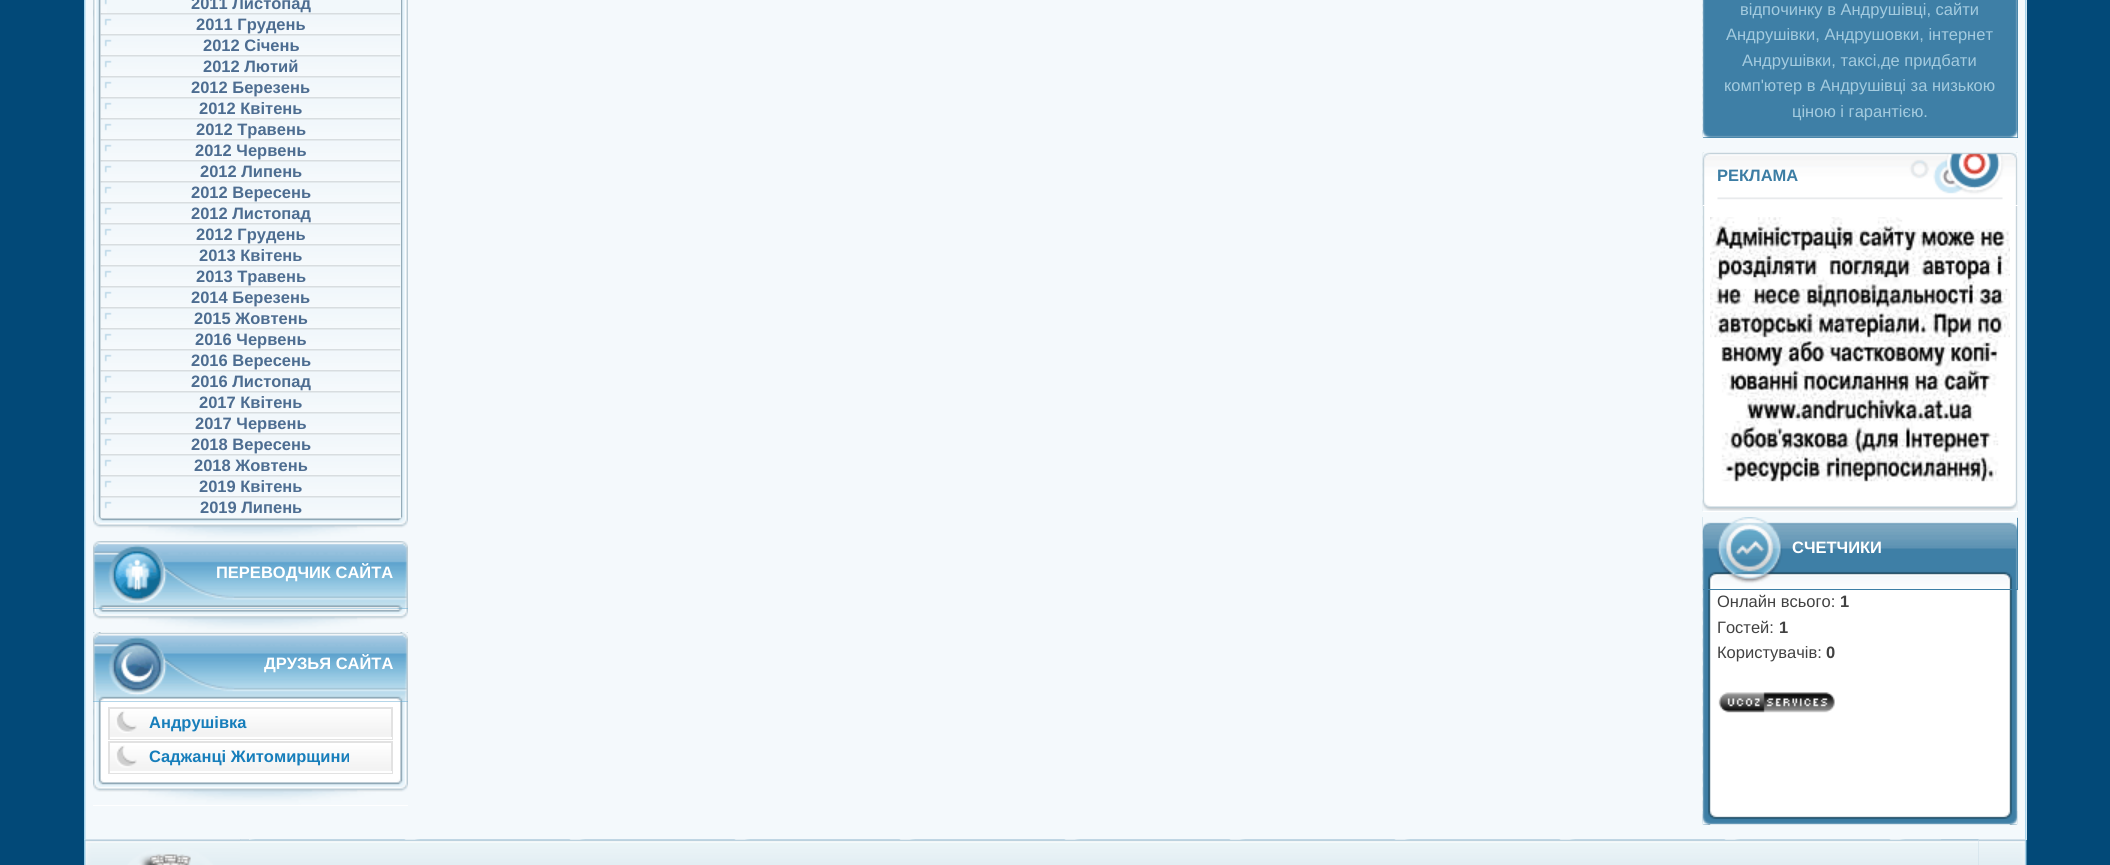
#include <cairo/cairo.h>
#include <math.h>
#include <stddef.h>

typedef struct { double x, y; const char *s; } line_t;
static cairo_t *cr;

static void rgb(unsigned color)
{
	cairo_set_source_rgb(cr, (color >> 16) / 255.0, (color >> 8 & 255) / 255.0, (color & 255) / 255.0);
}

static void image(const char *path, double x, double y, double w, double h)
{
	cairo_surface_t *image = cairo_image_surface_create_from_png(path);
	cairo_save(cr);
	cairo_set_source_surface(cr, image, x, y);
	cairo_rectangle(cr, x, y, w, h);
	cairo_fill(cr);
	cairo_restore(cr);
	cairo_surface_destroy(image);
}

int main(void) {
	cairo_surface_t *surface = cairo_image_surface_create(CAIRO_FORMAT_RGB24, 2110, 865);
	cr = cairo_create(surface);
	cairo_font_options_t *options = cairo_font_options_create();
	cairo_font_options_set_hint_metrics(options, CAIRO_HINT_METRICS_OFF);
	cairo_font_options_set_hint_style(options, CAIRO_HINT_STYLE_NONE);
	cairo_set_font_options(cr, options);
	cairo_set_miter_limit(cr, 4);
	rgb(0x024978);
	cairo_paint(cr);
	rgb(0xf4f9fc);
	cairo_rectangle(cr, 84, 0, 1943, 840);
	cairo_fill(cr);
	image("img/1.png", 84, 0, 2, 840);
	image("img/1.png", 2025, 0, 2, 840);
	image("img/2.png", 93, 0, 315, 516);
	image("img/3.png", 93, 515, 315, 26);
	rgb(0xf2f8fb);
	cairo_rectangle(cr, 107, 0, 294, 14);
	cairo_fill(cr);
	image("img/4.png", 100, 0, 7, 13);
	cairo_rectangle(cr, 400, 14, 1, 483);
	cairo_fill(cr);
	image("img/5.png", 100, 13, 301, 21);
	image("img/5.png", 100, 34, 301, 21);
	image("img/5.png", 100, 55, 301, 21);
	image("img/5.png", 100, 76, 301, 21);
	image("img/5.png", 100, 97, 301, 21);
	image("img/5.png", 100, 118, 301, 21);
	image("img/5.png", 100, 139, 301, 21);
	image("img/5.png", 100, 160, 301, 21);
	image("img/5.png", 100, 181, 301, 21);
	image("img/6.png", 100, 202, 301, 21);
	image("img/7.png", 100, 223, 301, 21);
	image("img/7.png", 100, 244, 301, 21);
	image("img/7.png", 100, 265, 301, 21);
	image("img/8.png", 100, 286, 301, 21);
	image("img/9.png", 100, 307, 301, 21);
	image("img/9.png", 100, 328, 301, 21);
	image("img/9.png", 100, 349, 301, 21);
	image("img/9.png", 100, 370, 301, 21);
	image("img/9.png", 100, 391, 301, 21);
	image("img/9.png", 100, 412, 301, 21);
	image("img/9.png", 100, 433, 301, 21);
	image("img/10.png", 100, 454, 301, 21);
	image("img/5.png", 100, 475, 301, 21);
	cairo_rectangle(cr, 101, 497, 300, 21);
	cairo_fill(cr);
	image("img/11.png", 100, 496, 301, 21);
	image("img/12.png", 93, 632, 315, 1);
	image("img/13.png", 93, 609, 315, 24);
	rgb(0x6aacd2);
	cairo_rectangle(cr, 93, 608, 315, 1);
	cairo_fill(cr);
	image("img/14.png", 93, 541, 315, 68);
	rgb(0xffffff);
	cairo_rectangle(cr, 93, 805, 315, 1);
	cairo_fill(cr);
	image("img/15.png", 93, 632, 315, 148);
	image("img/16.png", 93, 779, 315, 26);
	rgb(0x6aacd2);
	cairo_rectangle(cr, 93, 701, 315, 1);
	cairo_fill(cr);
	image("img/17.png", 93, 632, 315, 70);
	image("img/18.png", 110, 710, 281, 27);
	cairo_rectangle(cr, 109, 708, 283, 31);
	rgb(0xe2e2e2);
	cairo_stroke(cr);
	rgb(0xffffff);
	cairo_rectangle(cr, 110, 737, 282, 2);
	cairo_fill(cr);
	image("img/19.png", 110, 745, 281, 26);
	cairo_rectangle(cr, 109, 742, 283, 31);
	rgb(0xe2e2e2);
	cairo_stroke(cr);
	rgb(0xffffff);
	cairo_rectangle(cr, 110, 771, 282, 2);
	cairo_fill(cr);
	rgb(0x3e7fa6);
	cairo_rectangle(cr, 1703, 0, 315, 138);
	cairo_fill(cr);
	image("img/20.png", 1702, 0, 316, 138);
	image("img/21.png", 1702, 130, 316, 8);
	rgb(0xffffff);
	cairo_rectangle(cr, 1703, 206, 315, 306);
	cairo_fill(cr);
	image("img/22.png", 1702, 152, 316, 359);
	image("img/23.png", 1702, 500, 316, 11);
	cairo_rectangle(cr, 1703, 153, 315, 53);
	cairo_fill(cr);
	image("img/24.png", 1702, 152, 316, 53);
	image("img/25.png", 1710, 217, 300, 265);
	cairo_rectangle(cr, 1703, 590, 315, 235);
	cairo_fill(cr);
	image("img/26.png", 1702, 517, 316, 308);
	image("img/27.png", 1702, 811, 316, 14);
	rgb(0x3e7fa6);
	cairo_rectangle(cr, 1703, 518, 315, 72);
	cairo_fill(cr);
	image("img/28.png", 1702, 517, 316, 72);
	image("img/29.png", 1718, 692, 117, 21);
	image("img/30.png", 1940, 839, 87, 26);
	image("img/31.png", 84, 839, 165, 26);
	rgb(0xcadce6);
	cairo_rectangle(cr, 1978, 840, 1, 25);
	cairo_fill(cr);
	image("img/32.png", 240, 839, 1739, 26);
	cairo_select_font_face(cr, "Liberation Sans", CAIRO_FONT_SLANT_NORMAL, CAIRO_FONT_WEIGHT_BOLD);
	cairo_set_font_size(cr, 16.5);
	rgb(0x4d6d91);
	{
		static const line_t items[] = {
			{191, 9, "2011 Листопад"},
			{196, 30, "2011 Грудень"},
			{203, 51, "2012 Січень"},
			{203, 72, "2012 Лютий"},
			{191, 93, "2012 Березень"},
			{199, 114, "2012 Квітень"},
			{196, 135, "2012 Травень"},
			{195, 156, "2012 Червень"},
			{200, 177, "2012 Липень"},
			{191, 198, "2012 Вересень"},
			{191, 219, "2012 Листопад"},
			{196, 240, "2012 Грудень"},
			{199, 261, "2013 Квітень"},
			{196, 282, "2013 Травень"},
			{191, 303, "2014 Березень"},
			{194, 324, "2015 Жовтень"},
			{195, 345, "2016 Червень"},
			{191, 366, "2016 Вересень"},
			{191, 387, "2016 Листопад"},
			{199, 408, "2017 Квітень"},
			{195, 429, "2017 Червень"},
			{191, 450, "2018 Вересень"},
			{194, 471, "2018 Жовтень"},
			{199, 492, "2019 Квітень"},
			{200, 513, "2019 Липень"},
		};
		for (size_t i = 0; i < sizeof items / sizeof *items; i++) {
			cairo_move_to(cr, items[i].x, items[i].y);
			cairo_show_text(cr, items[i].s);
		}
	}
	rgb(0xffffff);
	cairo_move_to(cr, 216, 578);
	cairo_show_text(cr, "ПЕРЕВОДЧИК САЙТА");
	cairo_move_to(cr, 264, 669);
	cairo_show_text(cr, "ДРУЗЬЯ САЙТА");
	rgb(0x177ebb);
	cairo_move_to(cr, 149, 728);
	cairo_show_text(cr, "Андрушівка");
	cairo_move_to(cr, 149, 762);
	cairo_show_text(cr, "Саджанці Житомирщини");
	cairo_select_font_face(cr, "Liberation Sans", CAIRO_FONT_SLANT_NORMAL, CAIRO_FONT_WEIGHT_NORMAL);
	rgb(0xa3cbdf);
	{
		static const line_t items[] = {
			{1740, 15, "відпочинку в Андрушівці, сайти"},
			{1726, 40, "Андрушівки, Андрушовки, інтернет"},
			{1742, 66, "Андрушівки, таксі,де придбати"},
			{1724, 91, "комп'ютер в Андрушівці за низькою"},
			{1792, 117, "ціною і гарантією."},
		};
		for (size_t i = 0; i < sizeof items / sizeof *items; i++) {
			cairo_move_to(cr, items[i].x, items[i].y);
			cairo_show_text(cr, items[i].s);
		}
	}
	cairo_select_font_face(cr, "Liberation Sans", CAIRO_FONT_SLANT_NORMAL, CAIRO_FONT_WEIGHT_BOLD);
	rgb(0x3c7da4);
	cairo_move_to(cr, 1717, 181);
	cairo_show_text(cr, "РЕКЛАМА");
	rgb(0xffffff);
	cairo_move_to(cr, 1792, 553);
	cairo_show_text(cr, "СЧЕТЧИКИ");
	cairo_select_font_face(cr, "Liberation Sans", CAIRO_FONT_SLANT_NORMAL, CAIRO_FONT_WEIGHT_NORMAL);
	rgb(0x414141);
	cairo_move_to(cr, 1717, 607);
	cairo_show_text(cr, "Онлайн всього:");
	cairo_select_font_face(cr, "Liberation Sans", CAIRO_FONT_SLANT_NORMAL, CAIRO_FONT_WEIGHT_BOLD);
	cairo_move_to(cr, 1840, 607);
	cairo_show_text(cr, "1");
	cairo_select_font_face(cr, "Liberation Sans", CAIRO_FONT_SLANT_NORMAL, CAIRO_FONT_WEIGHT_NORMAL);
	cairo_move_to(cr, 1717, 633);
	cairo_show_text(cr, "Гостей:");
	cairo_select_font_face(cr, "Liberation Sans", CAIRO_FONT_SLANT_NORMAL, CAIRO_FONT_WEIGHT_BOLD);
	cairo_move_to(cr, 1779, 633);
	cairo_show_text(cr, "1");
	cairo_select_font_face(cr, "Liberation Sans", CAIRO_FONT_SLANT_NORMAL, CAIRO_FONT_WEIGHT_NORMAL);
	cairo_move_to(cr, 1717, 658);
	cairo_show_text(cr, "Користувачів:");
	cairo_select_font_face(cr, "Liberation Sans", CAIRO_FONT_SLANT_NORMAL, CAIRO_FONT_WEIGHT_BOLD);
	cairo_move_to(cr, 1826, 658);
	cairo_show_text(cr, "0");
	cairo_surface_write_to_png(surface, "page.png");
	cairo_font_options_destroy(options);
	cairo_destroy(cr);
	cairo_surface_destroy(surface);
	return 0;
}
